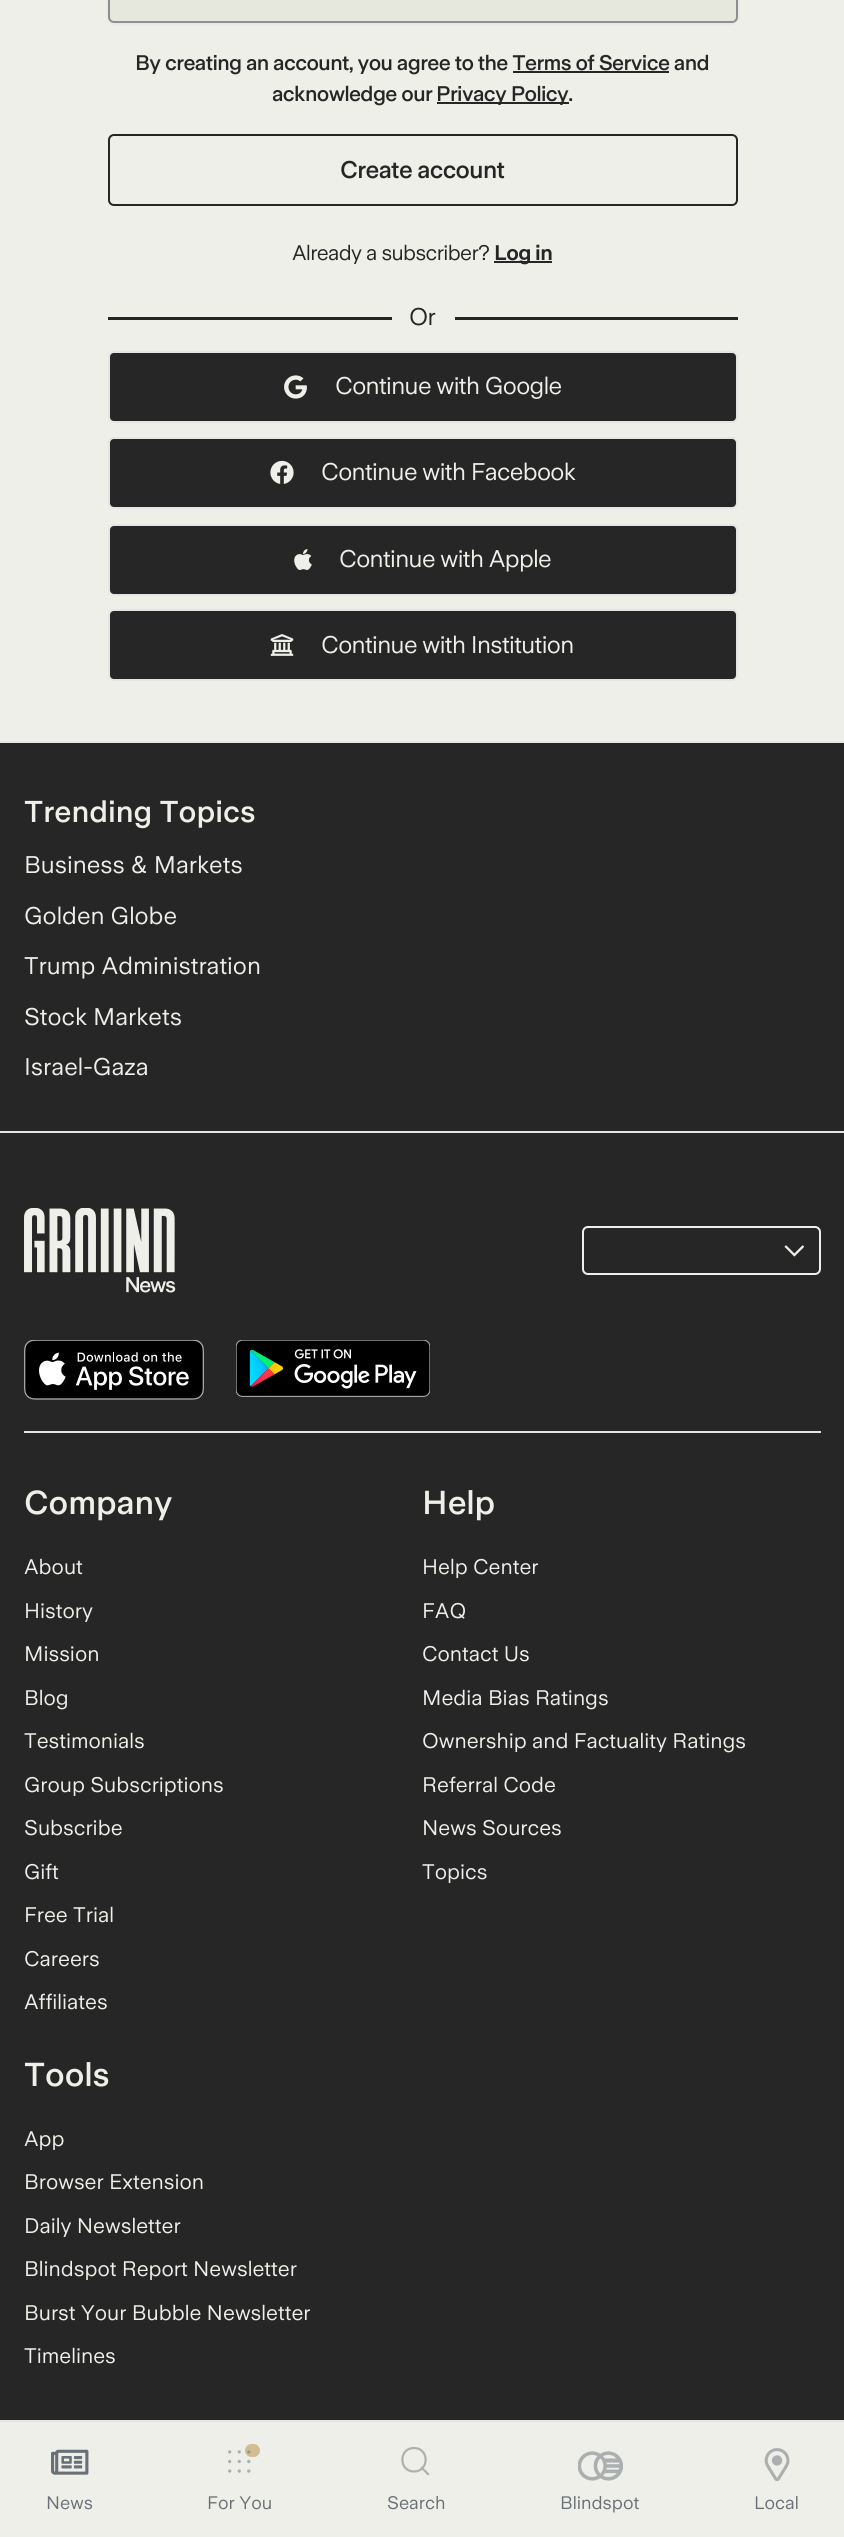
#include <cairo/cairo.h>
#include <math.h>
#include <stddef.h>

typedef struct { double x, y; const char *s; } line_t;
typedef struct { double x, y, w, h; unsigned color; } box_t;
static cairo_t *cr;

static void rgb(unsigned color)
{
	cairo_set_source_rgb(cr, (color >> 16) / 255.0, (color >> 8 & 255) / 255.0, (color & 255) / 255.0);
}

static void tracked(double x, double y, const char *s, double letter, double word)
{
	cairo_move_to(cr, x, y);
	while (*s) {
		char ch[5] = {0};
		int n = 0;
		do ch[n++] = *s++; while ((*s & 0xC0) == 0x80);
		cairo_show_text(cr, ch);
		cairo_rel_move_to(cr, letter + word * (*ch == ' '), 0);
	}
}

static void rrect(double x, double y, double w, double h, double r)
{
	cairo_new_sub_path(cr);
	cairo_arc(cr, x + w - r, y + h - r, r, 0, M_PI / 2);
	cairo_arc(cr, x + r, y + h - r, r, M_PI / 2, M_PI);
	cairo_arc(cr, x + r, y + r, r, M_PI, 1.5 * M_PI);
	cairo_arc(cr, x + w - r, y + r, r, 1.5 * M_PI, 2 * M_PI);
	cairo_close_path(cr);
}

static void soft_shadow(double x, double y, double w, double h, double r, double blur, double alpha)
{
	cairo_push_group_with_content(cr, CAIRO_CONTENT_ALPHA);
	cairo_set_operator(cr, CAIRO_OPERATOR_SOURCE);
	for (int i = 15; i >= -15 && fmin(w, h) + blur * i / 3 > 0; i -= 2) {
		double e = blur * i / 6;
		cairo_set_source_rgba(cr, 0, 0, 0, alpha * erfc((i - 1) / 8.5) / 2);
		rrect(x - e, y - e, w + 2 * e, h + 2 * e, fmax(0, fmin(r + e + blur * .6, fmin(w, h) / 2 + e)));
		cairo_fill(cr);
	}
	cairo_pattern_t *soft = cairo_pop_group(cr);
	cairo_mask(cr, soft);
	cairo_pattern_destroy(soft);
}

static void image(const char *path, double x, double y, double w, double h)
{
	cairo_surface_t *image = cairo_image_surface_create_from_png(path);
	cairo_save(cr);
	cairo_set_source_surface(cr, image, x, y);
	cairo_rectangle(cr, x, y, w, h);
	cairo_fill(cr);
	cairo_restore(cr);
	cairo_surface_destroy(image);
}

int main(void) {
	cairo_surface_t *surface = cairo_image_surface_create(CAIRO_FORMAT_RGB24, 844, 2537);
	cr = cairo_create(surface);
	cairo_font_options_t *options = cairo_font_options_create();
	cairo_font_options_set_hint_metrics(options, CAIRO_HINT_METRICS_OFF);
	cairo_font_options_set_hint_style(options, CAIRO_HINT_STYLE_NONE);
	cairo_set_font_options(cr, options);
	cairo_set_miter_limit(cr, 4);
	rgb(0xeeefe9);
	cairo_paint(cr);
	rgb(0x000000);
	soft_shadow(108, -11, 630, 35, 6, 1.5, 0.05);
	rgb(0xe6e8de);
	rrect(109, -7, 628, 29, 5);
	cairo_fill_preserve(cr);
	rgb(0x8f8e94);
	cairo_stroke(cr);
	rgb(0x262626);
	cairo_rectangle(cr, 513, 71, 156, 2);
	cairo_fill(cr);
	cairo_rectangle(cr, 437, 102, 132, 2);
	cairo_fill(cr);
	rrect(109, 135, 628, 70, 5);
	cairo_stroke(cr);
	{
		static const box_t items[] = {
			{494, 261, 58, 2, 0x262626},
			{108, 317, 284, 3, 0x262626},
			{455, 317, 283, 3, 0x262626},
		};
		for (size_t i = 0; i < sizeof items / sizeof *items; i++) {
			rgb(items[i].color);
			cairo_rectangle(cr, items[i].x, items[i].y, items[i].w, items[i].h);
			cairo_fill(cr);
		}
	}
	rrect(109, 352, 628, 70, 5);
	cairo_fill_preserve(cr);
	rgb(0xe5e5e5);
	cairo_stroke(cr);
	image("img/1.png", 284, 375, 23, 24);
	rgb(0x262626);
	rrect(109, 438, 628, 70, 5);
	cairo_fill_preserve(cr);
	rgb(0xe5e5e5);
	cairo_stroke(cr);
	image("img/2.png", 270, 460, 24, 24);
	rgb(0x262626);
	rrect(109, 525, 628, 70, 5);
	cairo_fill_preserve(cr);
	rgb(0xe5e5e5);
	cairo_stroke(cr);
	image("img/3.png", 294, 549, 18, 21);
	rgb(0x262626);
	rrect(109, 610, 628, 70, 5);
	cairo_fill_preserve(cr);
	rgb(0xe5e5e5);
	cairo_stroke(cr);
	image("img/4.png", 270, 634, 24, 22);
	{
		static const box_t items[] = {
			{0, 743, 844, 1677, 0x262626},
			{0, 741, 844, 2, 0xe5e5e5},
			{0, 1131, 844, 2, 0xe5e5e5},
		};
		for (size_t i = 0; i < sizeof items / sizeof *items; i++) {
			rgb(items[i].color);
			cairo_rectangle(cr, items[i].x, items[i].y, items[i].w, items[i].h);
			cairo_fill(cr);
		}
	}
	image("img/5.png", 24, 1208, 152, 85);
	rrect(583, 1227, 237, 47, 5);
	rgb(0xeeefe9);
	cairo_stroke(cr);
	image("img/6.png", 784, 1245, 20, 12);
	image("img/7.png", 24, 1340, 180, 60);
	image("img/8.png", 236, 1340, 194, 57);
	rgb(0xe5e5e5);
	cairo_rectangle(cr, 24, 1431, 797, 2);
	cairo_fill(cr);
	cairo_rectangle(cr, 0, 2420, 844, 2);
	cairo_fill(cr);
	image("img/9.png", 51, 2449, 38, 26);
	rgb(0xd1bd91);
	rrect(245, 2444, 15, 13, 6.5);
	cairo_fill(cr);
	image("img/10.png", 228, 2450, 23, 23);
	cairo_new_path(cr);
	cairo_move_to(cr, 414, 2471.5);
	cairo_curve_to(cr, 429.5, 2471.5, 429.5, 2448, 414, 2448);
	cairo_curve_to(cr, 398.5, 2448, 398.5, 2471.5, 414, 2471.5);
	cairo_close_path(cr);
	rgb(0xacb0b1);
	cairo_set_line_width(cr, 2.2);
	cairo_set_line_cap(cr, CAIRO_LINE_CAP_ROUND);
	cairo_set_line_join(cr, CAIRO_LINE_JOIN_ROUND);
	cairo_stroke(cr);
	cairo_new_path(cr);
	cairo_move_to(cr, 422, 2468);
	cairo_line_to(cr, 428, 2474);
	cairo_set_line_cap(cr, CAIRO_LINE_CAP_SQUARE);
	cairo_stroke(cr);
	image("img/11.png", 578, 2451, 45, 30);
	image("img/12.png", 764, 2448, 26, 34);
	cairo_select_font_face(cr, "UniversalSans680", CAIRO_FONT_SLANT_NORMAL, CAIRO_FONT_WEIGHT_BOLD);
	cairo_set_font_size(cr, 21);
	rgb(0x262626);
	{
		static const line_t items[] = {
			{135, 70, "By creating an account, you agree to the Terms of Service and"},
			{272, 101, "acknowledge our"},
			{436, 101, "Privacy Policy."},
		};
		for (size_t i = 0; i < sizeof items / sizeof *items; i++) {
			tracked(items[i].x, items[i].y, items[i].s, -0.6, 0);
		}
	}
	cairo_set_font_size(cr, 24);
	tracked(340, 178, "Create account", -0.6, 0);
	cairo_select_font_face(cr, "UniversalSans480 Medium", CAIRO_FONT_SLANT_NORMAL, CAIRO_FONT_WEIGHT_NORMAL);
	cairo_set_font_size(cr, 21);
	tracked(292, 260, "Already a subscriber?", -0.6, 0);
	cairo_select_font_face(cr, "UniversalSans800 ExtraBold", CAIRO_FONT_SLANT_NORMAL, CAIRO_FONT_WEIGHT_NORMAL);
	tracked(494, 260, "Log in", -0.6, 0);
	cairo_select_font_face(cr, "UniversalSans480 Medium", CAIRO_FONT_SLANT_NORMAL, CAIRO_FONT_WEIGHT_NORMAL);
	cairo_set_font_size(cr, 24);
	tracked(409, 325, "Or", -0.6, 0);
	rgb(0xeeefe9);
	{
		static const line_t items[] = {
			{335, 394, "Continue with Google"},
			{321, 480, "Continue with Facebook"},
			{339, 567, "Continue with Apple"},
			{321, 653, "Continue with Institution"},
		};
		for (size_t i = 0; i < sizeof items / sizeof *items; i++) {
			tracked(items[i].x, items[i].y, items[i].s, -0.6, 0);
		}
	}
	cairo_select_font_face(cr, "UniversalSans680", CAIRO_FONT_SLANT_NORMAL, CAIRO_FONT_WEIGHT_BOLD);
	cairo_set_font_size(cr, 30);
	cairo_move_to(cr, 24, 822);
	cairo_show_text(cr, "Trending Topics");
	cairo_select_font_face(cr, "UniversalSans480 Medium", CAIRO_FONT_SLANT_NORMAL, CAIRO_FONT_WEIGHT_NORMAL);
	cairo_set_font_size(cr, 24);
	{
		static const line_t items[] = {
			{24, 873, "Business & Markets"},
			{24, 924, "Golden Globe"},
			{24, 974, "Trump Administration"},
			{24, 1025, "Stock Markets"},
			{24, 1075, "Israel-Gaza"},
		};
		for (size_t i = 0; i < sizeof items / sizeof *items; i++) {
			cairo_move_to(cr, items[i].x, items[i].y);
			cairo_show_text(cr, items[i].s);
		}
	}
	cairo_select_font_face(cr, "UniversalSans680", CAIRO_FONT_SLANT_NORMAL, CAIRO_FONT_WEIGHT_BOLD);
	cairo_set_font_size(cr, 33);
	cairo_move_to(cr, 24, 1514);
	cairo_show_text(cr, "Company");
	cairo_select_font_face(cr, "UniversalSans480 Medium", CAIRO_FONT_SLANT_NORMAL, CAIRO_FONT_WEIGHT_NORMAL);
	cairo_set_font_size(cr, 21);
	{
		static const line_t items[] = {
			{24, 1574, "About"},
			{24, 1618, "History"},
			{24, 1661, "Mission"},
			{24, 1705, "Blog"},
			{24, 1748, "Testimonials"},
			{24, 1792, "Group Subscriptions"},
			{24, 1835, "Subscribe"},
			{24, 1879, "Gift"},
			{24, 1922, "Free Trial"},
			{24, 1966, "Careers"},
			{24, 2009, "Affiliates"},
		};
		for (size_t i = 0; i < sizeof items / sizeof *items; i++) {
			cairo_move_to(cr, items[i].x, items[i].y);
			cairo_show_text(cr, items[i].s);
		}
	}
	cairo_select_font_face(cr, "UniversalSans680", CAIRO_FONT_SLANT_NORMAL, CAIRO_FONT_WEIGHT_BOLD);
	cairo_set_font_size(cr, 33);
	cairo_move_to(cr, 422, 1514);
	cairo_show_text(cr, "Help");
	cairo_select_font_face(cr, "UniversalSans480 Medium", CAIRO_FONT_SLANT_NORMAL, CAIRO_FONT_WEIGHT_NORMAL);
	cairo_set_font_size(cr, 21);
	{
		static const line_t items[] = {
			{422, 1574, "Help Center"},
			{422, 1618, "FAQ"},
			{422, 1661, "Contact Us"},
			{422, 1705, "Media Bias Ratings"},
			{422, 1748, "Ownership and Factuality Ratings"},
			{422, 1792, "Referral Code"},
			{422, 1835, "News Sources"},
			{422, 1879, "Topics"},
		};
		for (size_t i = 0; i < sizeof items / sizeof *items; i++) {
			cairo_move_to(cr, items[i].x, items[i].y);
			cairo_show_text(cr, items[i].s);
		}
	}
	cairo_select_font_face(cr, "UniversalSans680", CAIRO_FONT_SLANT_NORMAL, CAIRO_FONT_WEIGHT_BOLD);
	cairo_set_font_size(cr, 33);
	cairo_move_to(cr, 24, 2086);
	cairo_show_text(cr, "Tools");
	cairo_select_font_face(cr, "UniversalSans480 Medium", CAIRO_FONT_SLANT_NORMAL, CAIRO_FONT_WEIGHT_NORMAL);
	cairo_set_font_size(cr, 21);
	{
		static const line_t items[] = {
			{24, 2146, "App"},
			{24, 2189, "Browser Extension"},
			{24, 2233, "Daily Newsletter"},
			{24, 2276, "Blindspot Report Newsletter"},
			{24, 2320, "Burst Your Bubble Newsletter"},
			{24, 2363, "Timelines"},
		};
		for (size_t i = 0; i < sizeof items / sizeof *items; i++) {
			cairo_move_to(cr, items[i].x, items[i].y);
			cairo_show_text(cr, items[i].s);
		}
	}
	cairo_set_font_size(cr, 18);
	rgb(0x6a7078);
	{
		static const line_t items[] = {
			{46, 2509, "News"},
			{207, 2509, "For You"},
			{387, 2509, "Search"},
			{560, 2509, "Blindspot"},
			{754, 2509, "Local"},
		};
		for (size_t i = 0; i < sizeof items / sizeof *items; i++) {
			cairo_move_to(cr, items[i].x, items[i].y);
			cairo_show_text(cr, items[i].s);
		}
	}
	cairo_surface_write_to_png(surface, "page.png");
	cairo_font_options_destroy(options);
	cairo_destroy(cr);
	cairo_surface_destroy(surface);
	return 0;
}
